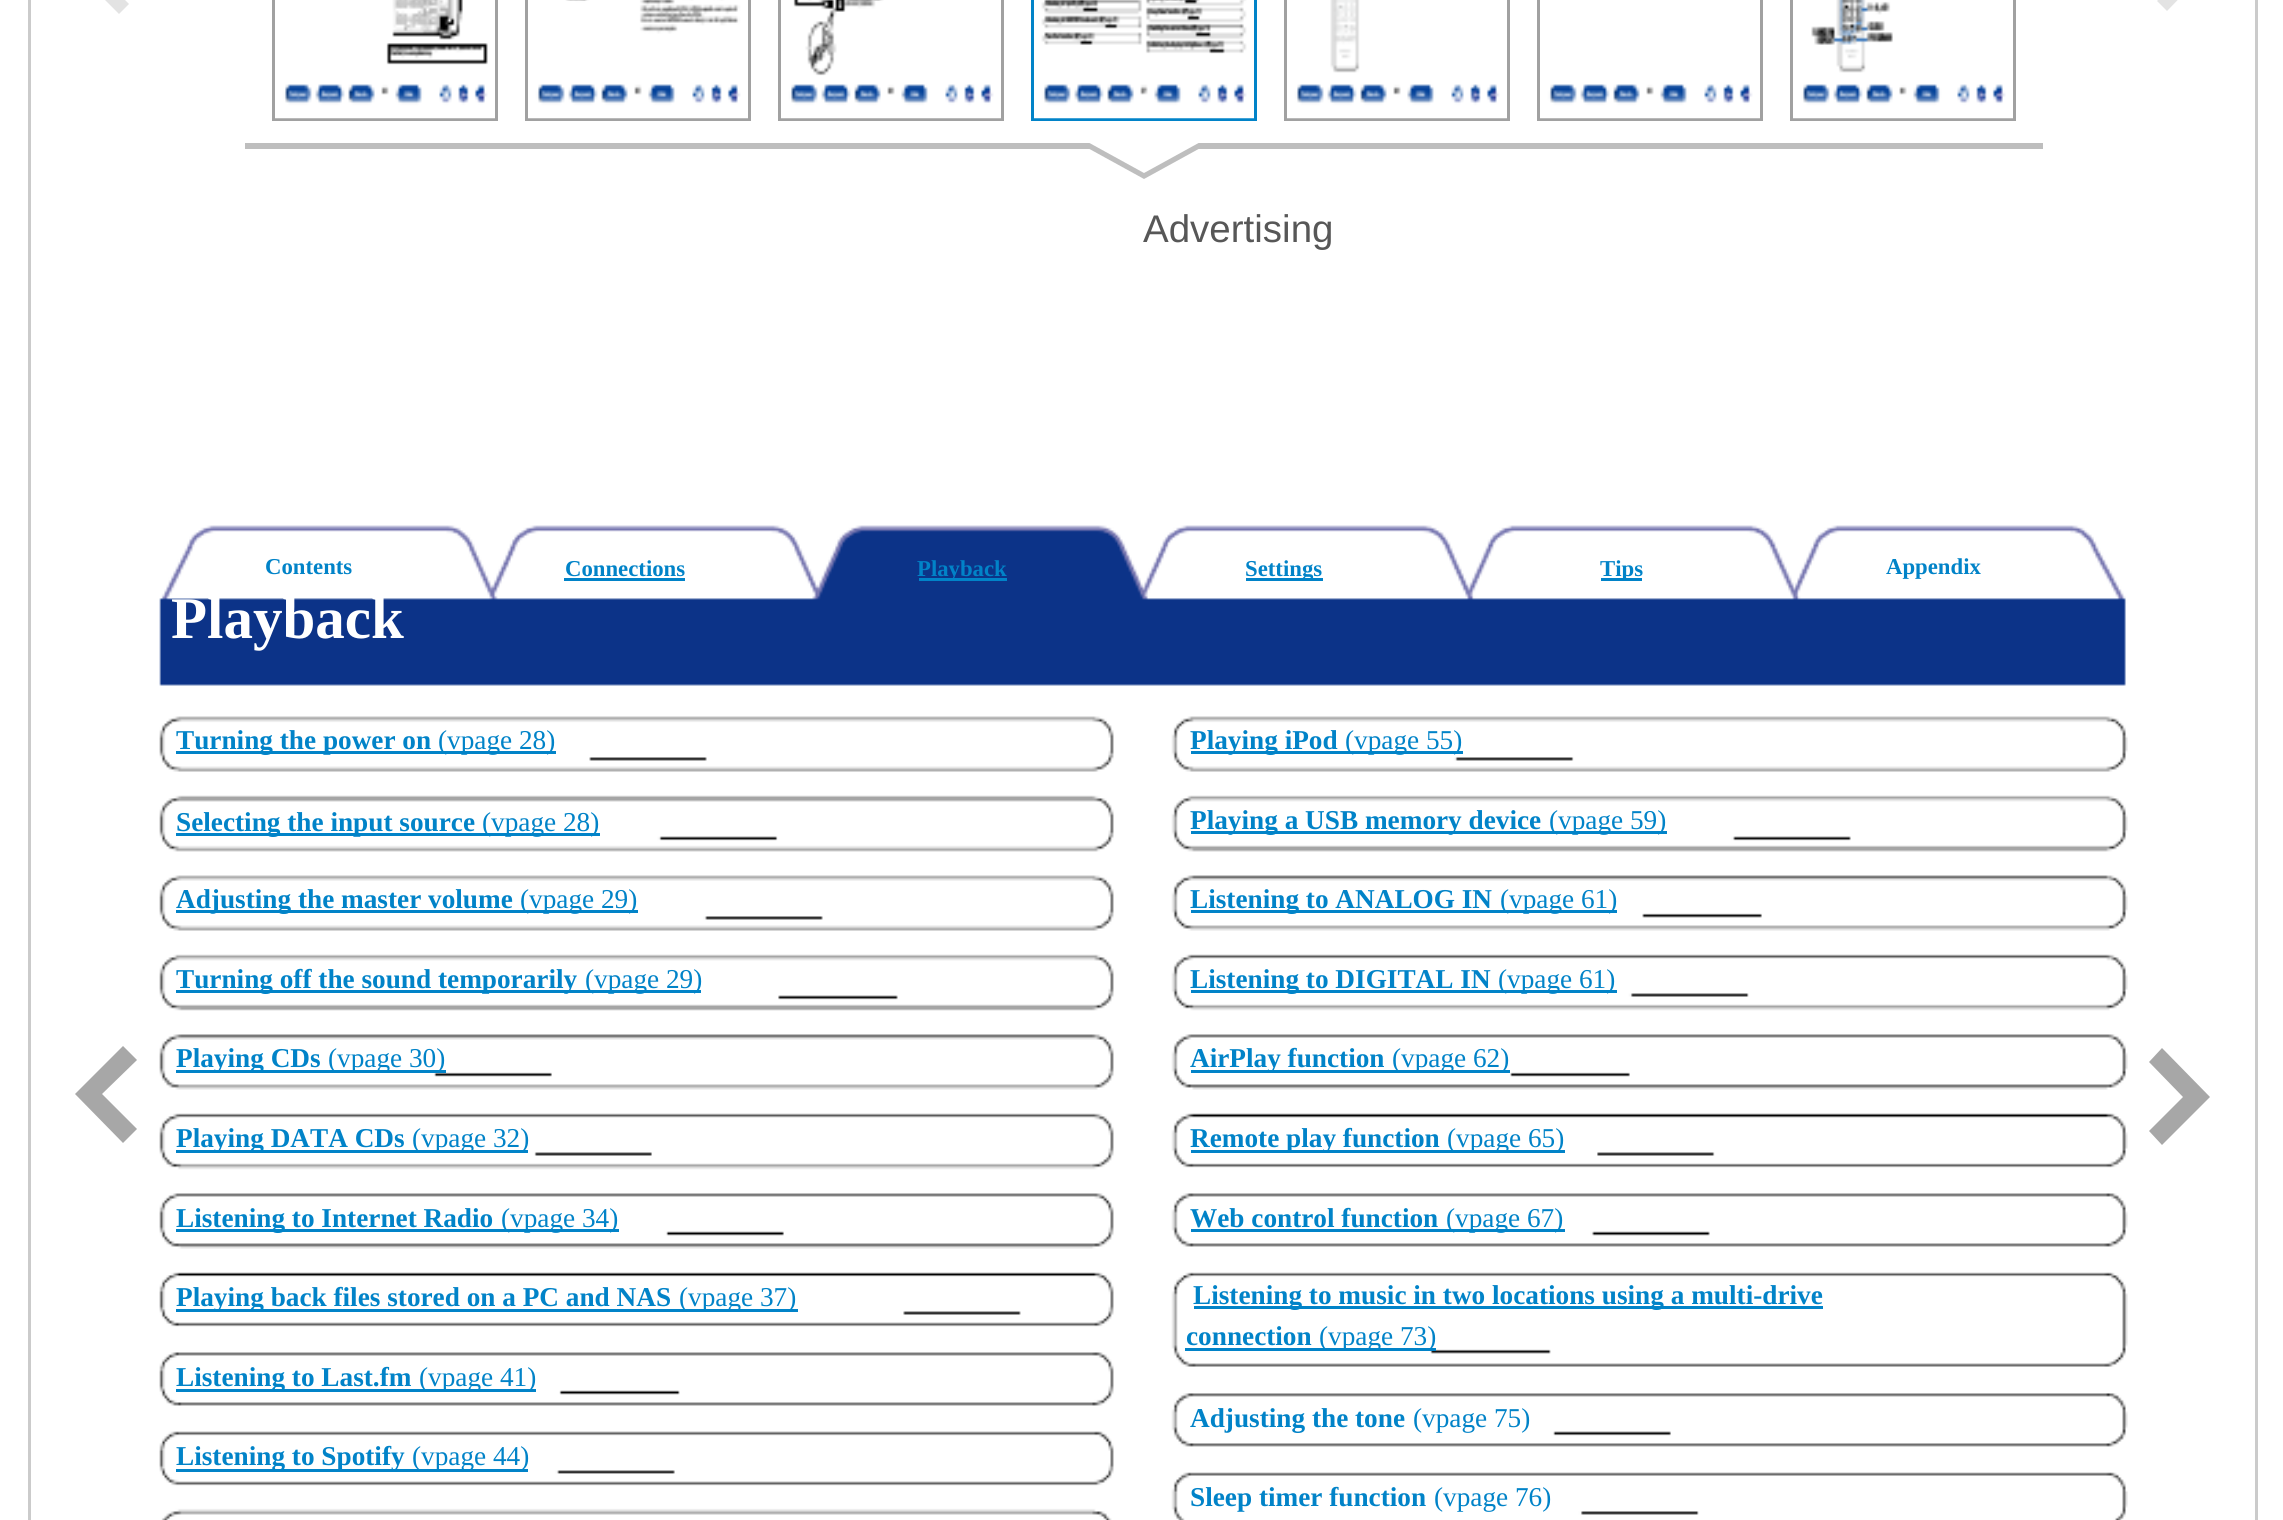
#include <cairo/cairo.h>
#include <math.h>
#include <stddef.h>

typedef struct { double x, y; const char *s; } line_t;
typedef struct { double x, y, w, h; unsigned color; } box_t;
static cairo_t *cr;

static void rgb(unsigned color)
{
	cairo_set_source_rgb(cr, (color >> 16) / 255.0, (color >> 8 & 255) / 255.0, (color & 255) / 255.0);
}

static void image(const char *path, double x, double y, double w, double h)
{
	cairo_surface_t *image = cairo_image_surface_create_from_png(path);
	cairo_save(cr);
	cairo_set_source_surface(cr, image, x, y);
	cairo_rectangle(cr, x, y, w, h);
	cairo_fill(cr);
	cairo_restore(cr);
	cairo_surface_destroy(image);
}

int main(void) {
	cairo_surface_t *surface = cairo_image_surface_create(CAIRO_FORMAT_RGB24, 2283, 1520);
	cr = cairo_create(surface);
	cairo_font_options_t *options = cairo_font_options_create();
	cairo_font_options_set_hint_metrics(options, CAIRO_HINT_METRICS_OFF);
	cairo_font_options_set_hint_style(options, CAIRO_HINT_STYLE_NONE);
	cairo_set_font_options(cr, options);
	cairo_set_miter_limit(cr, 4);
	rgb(0xffffff);
	cairo_paint(cr);
	cairo_rectangle(cr, 29.5, -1.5, 2227, 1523);
	rgb(0xcbcbcb);
	cairo_set_line_width(cr, 3);
	cairo_stroke(cr);
	rgb(0xe3e3e3);
	cairo_new_path(cr);
	cairo_move_to(cr, 119, 14);
	cairo_line_to(cr, 83, -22);
	cairo_line_to(cr, 119, -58);
	cairo_line_to(cr, 129, -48);
	cairo_line_to(cr, 103, -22);
	cairo_line_to(cr, 129, 4);
	cairo_close_path(cr);
	cairo_fill(cr);
	cairo_rectangle(cr, 273.5, -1.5, 223, 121);
	rgb(0xa1a1a1);
	cairo_stroke(cr);
	image("img/1.png", 275, 0, 220, 119);
	cairo_rectangle(cr, 526.5, -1.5, 223, 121);
	cairo_stroke(cr);
	image("img/2.png", 528, 0, 220, 119);
	cairo_rectangle(cr, 779.5, -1.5, 223, 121);
	cairo_stroke(cr);
	image("img/3.png", 781, 0, 220, 119);
	cairo_rectangle(cr, 1032.5, -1.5, 223, 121);
	rgb(0x0183c8);
	cairo_stroke(cr);
	image("img/4.png", 1034, 0, 220, 119);
	rgb(0xbebebe);
	cairo_rectangle(cr, 245, 143, 1798, 6);
	cairo_fill(cr);
	cairo_new_path(cr);
	cairo_move_to(cr, 1084, 146);
	cairo_line_to(cr, 1204, 146);
	cairo_line_to(cr, 1144, 179);
	cairo_close_path(cr);
	cairo_fill(cr);
	rgb(0xffffff);
	cairo_new_path(cr);
	cairo_move_to(cr, 1084, 140);
	cairo_line_to(cr, 1204, 140);
	cairo_line_to(cr, 1144, 173);
	cairo_close_path(cr);
	cairo_fill(cr);
	cairo_rectangle(cr, 1285.5, -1.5, 223, 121);
	rgb(0xa1a1a1);
	cairo_stroke(cr);
	image("img/5.png", 1287, 0, 220, 119);
	cairo_rectangle(cr, 1538.5, -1.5, 223, 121);
	cairo_stroke(cr);
	image("img/6.png", 1540, 84, 220, 35);
	cairo_rectangle(cr, 1791.5, -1.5, 223, 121);
	cairo_stroke(cr);
	image("img/7.png", 1793, 0, 220, 119);
	rgb(0xe3e3e3);
	cairo_new_path(cr);
	cairo_move_to(cr, 2167, -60);
	cairo_line_to(cr, 2202, -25);
	cairo_line_to(cr, 2167, 11);
	cairo_line_to(cr, 2157, 1);
	cairo_line_to(cr, 2182, -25);
	cairo_line_to(cr, 2157, -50);
	cairo_close_path(cr);
	cairo_fill(cr);
	rgb(0xa7a7a7);
	cairo_new_path(cr);
	cairo_move_to(cr, 123, 1143);
	cairo_line_to(cr, 75, 1094);
	cairo_line_to(cr, 123, 1046);
	cairo_line_to(cr, 137, 1060);
	cairo_line_to(cr, 102, 1094);
	cairo_line_to(cr, 137, 1129);
	cairo_close_path(cr);
	cairo_fill(cr);
	image("img/8.png", 159, 525, 1969, 995);
	{
		static const box_t items[] = {
			{564, 578, 121, 3, 0x0183c8},
			{919, 578, 88, 3, 0x0183c8},
			{1246, 578, 77, 3, 0x0183c8},
			{1601, 578, 41, 3, 0x0183c8},
			{176, 751, 380, 3, 0x0183c8},
			{1191, 751, 272, 3, 0x0183c8},
			{176, 833, 424, 3, 0x0183c8},
			{1191, 831, 476, 3, 0x0183c8},
			{176, 910, 462, 3, 0x0183c8},
			{1191, 910, 426, 3, 0x0183c8},
			{176, 990, 525, 3, 0x0183c8},
			{1191, 990, 426, 3, 0x0183c8},
			{176, 1070, 270, 3, 0x0183c8},
			{1191, 1070, 319, 3, 0x0183c8},
			{176, 1150, 352, 3, 0x0183c8},
			{1191, 1150, 374, 3, 0x0183c8},
			{176, 1229, 443, 3, 0x0183c8},
			{1191, 1229, 374, 3, 0x0183c8},
			{176, 1309, 622, 3, 0x0183c8},
			{1194, 1306, 629, 3, 0x0183c8},
			{1185, 1348, 251, 3, 0x0183c8},
			{176, 1389, 360, 3, 0x0183c8},
			{176, 1469, 352, 3, 0x0183c8},
		};
		for (size_t i = 0; i < sizeof items / sizeof *items; i++) {
			rgb(items[i].color);
			cairo_rectangle(cr, items[i].x, items[i].y, items[i].w, items[i].h);
			cairo_fill(cr);
		}
	}
	rgb(0xa7a7a7);
	cairo_new_path(cr);
	cairo_move_to(cr, 2162, 1048);
	cairo_line_to(cr, 2210, 1097);
	cairo_line_to(cr, 2162, 1145);
	cairo_line_to(cr, 2149, 1131);
	cairo_line_to(cr, 2183, 1097);
	cairo_line_to(cr, 2149, 1062);
	cairo_close_path(cr);
	cairo_fill(cr);
	cairo_select_font_face(cr, "Liberation Sans", CAIRO_FONT_SLANT_NORMAL, CAIRO_FONT_WEIGHT_NORMAL);
	cairo_set_font_size(cr, 38.5);
	rgb(0x575757);
	cairo_move_to(cr, 1143, 242);
	cairo_show_text(cr, "Advertising");
	cairo_select_font_face(cr, "Liberation Serif", CAIRO_FONT_SLANT_NORMAL, CAIRO_FONT_WEIGHT_BOLD);
	cairo_set_font_size(cr, 22.75);
	rgb(0x0183c8);
	{
		static const line_t items[] = {
			{265, 574, "Contents"},
			{565, 576, "Connections"},
			{917, 576, "Playback"},
			{1245, 576, "Settings"},
			{1600, 576, "Tips"},
			{1886, 574, "Appendix"},
		};
		for (size_t i = 0; i < sizeof items / sizeof *items; i++) {
			cairo_move_to(cr, items[i].x, items[i].y);
			cairo_show_text(cr, items[i].s);
		}
	}
	cairo_set_font_size(cr, 59);
	rgb(0xffffff);
	cairo_move_to(cr, 171, 638);
	cairo_show_text(cr, "Playback");
	cairo_set_font_size(cr, 27.25);
	rgb(0x0183c8);
	cairo_move_to(cr, 176, 749);
	cairo_show_text(cr, "Turning the power on");
	cairo_select_font_face(cr, "Liberation Serif", CAIRO_FONT_SLANT_NORMAL, CAIRO_FONT_WEIGHT_NORMAL);
	cairo_move_to(cr, 438, 749);
	cairo_show_text(cr, "(vpage 28)");
	cairo_select_font_face(cr, "Liberation Serif", CAIRO_FONT_SLANT_NORMAL, CAIRO_FONT_WEIGHT_BOLD);
	cairo_move_to(cr, 1190, 749);
	cairo_show_text(cr, "Playing iPod");
	cairo_select_font_face(cr, "Liberation Serif", CAIRO_FONT_SLANT_NORMAL, CAIRO_FONT_WEIGHT_NORMAL);
	cairo_move_to(cr, 1345, 749);
	cairo_show_text(cr, "(vpage 55)");
	cairo_select_font_face(cr, "Liberation Serif", CAIRO_FONT_SLANT_NORMAL, CAIRO_FONT_WEIGHT_BOLD);
	cairo_move_to(cr, 176, 831);
	cairo_show_text(cr, "Selecting the input source");
	cairo_select_font_face(cr, "Liberation Serif", CAIRO_FONT_SLANT_NORMAL, CAIRO_FONT_WEIGHT_NORMAL);
	cairo_move_to(cr, 482, 831);
	cairo_show_text(cr, "(vpage 28)");
	cairo_select_font_face(cr, "Liberation Serif", CAIRO_FONT_SLANT_NORMAL, CAIRO_FONT_WEIGHT_BOLD);
	cairo_move_to(cr, 1190, 829);
	cairo_show_text(cr, "Playing a USB memory device");
	cairo_select_font_face(cr, "Liberation Serif", CAIRO_FONT_SLANT_NORMAL, CAIRO_FONT_WEIGHT_NORMAL);
	cairo_move_to(cr, 1549, 829);
	cairo_show_text(cr, "(vpage 59)");
	cairo_select_font_face(cr, "Liberation Serif", CAIRO_FONT_SLANT_NORMAL, CAIRO_FONT_WEIGHT_BOLD);
	cairo_move_to(cr, 176, 908);
	cairo_show_text(cr, "Adjusting the master volume");
	cairo_select_font_face(cr, "Liberation Serif", CAIRO_FONT_SLANT_NORMAL, CAIRO_FONT_WEIGHT_NORMAL);
	cairo_move_to(cr, 520, 908);
	cairo_show_text(cr, "(vpage 29)");
	cairo_select_font_face(cr, "Liberation Serif", CAIRO_FONT_SLANT_NORMAL, CAIRO_FONT_WEIGHT_BOLD);
	cairo_move_to(cr, 1190, 908);
	cairo_show_text(cr, "Listening to ANALOG IN");
	cairo_select_font_face(cr, "Liberation Serif", CAIRO_FONT_SLANT_NORMAL, CAIRO_FONT_WEIGHT_NORMAL);
	cairo_move_to(cr, 1500, 908);
	cairo_show_text(cr, "(vpage 61)");
	cairo_select_font_face(cr, "Liberation Serif", CAIRO_FONT_SLANT_NORMAL, CAIRO_FONT_WEIGHT_BOLD);
	cairo_move_to(cr, 176, 988);
	cairo_show_text(cr, "Turning off the sound temporarily");
	cairo_select_font_face(cr, "Liberation Serif", CAIRO_FONT_SLANT_NORMAL, CAIRO_FONT_WEIGHT_NORMAL);
	cairo_move_to(cr, 585, 988);
	cairo_show_text(cr, "(vpage 29)");
	cairo_select_font_face(cr, "Liberation Serif", CAIRO_FONT_SLANT_NORMAL, CAIRO_FONT_WEIGHT_BOLD);
	cairo_move_to(cr, 1190, 988);
	cairo_show_text(cr, "Listening to DIGITAL IN");
	cairo_select_font_face(cr, "Liberation Serif", CAIRO_FONT_SLANT_NORMAL, CAIRO_FONT_WEIGHT_NORMAL);
	cairo_move_to(cr, 1498, 988);
	cairo_show_text(cr, "(vpage 61)");
	cairo_select_font_face(cr, "Liberation Serif", CAIRO_FONT_SLANT_NORMAL, CAIRO_FONT_WEIGHT_BOLD);
	cairo_move_to(cr, 176, 1067);
	cairo_show_text(cr, "Playing CDs");
	cairo_select_font_face(cr, "Liberation Serif", CAIRO_FONT_SLANT_NORMAL, CAIRO_FONT_WEIGHT_NORMAL);
	cairo_move_to(cr, 328, 1067);
	cairo_show_text(cr, "(vpage 30)");
	cairo_select_font_face(cr, "Liberation Serif", CAIRO_FONT_SLANT_NORMAL, CAIRO_FONT_WEIGHT_BOLD);
	cairo_move_to(cr, 1190, 1067);
	cairo_show_text(cr, "AirPlay function");
	cairo_select_font_face(cr, "Liberation Serif", CAIRO_FONT_SLANT_NORMAL, CAIRO_FONT_WEIGHT_NORMAL);
	cairo_move_to(cr, 1392, 1067);
	cairo_show_text(cr, "(vpage 62)");
	cairo_select_font_face(cr, "Liberation Serif", CAIRO_FONT_SLANT_NORMAL, CAIRO_FONT_WEIGHT_BOLD);
	cairo_move_to(cr, 176, 1147);
	cairo_show_text(cr, "Playing DATA CDs");
	cairo_select_font_face(cr, "Liberation Serif", CAIRO_FONT_SLANT_NORMAL, CAIRO_FONT_WEIGHT_NORMAL);
	cairo_move_to(cr, 412, 1147);
	cairo_show_text(cr, "(vpage 32)");
	cairo_select_font_face(cr, "Liberation Serif", CAIRO_FONT_SLANT_NORMAL, CAIRO_FONT_WEIGHT_BOLD);
	cairo_move_to(cr, 1190, 1147);
	cairo_show_text(cr, "Remote play function");
	cairo_select_font_face(cr, "Liberation Serif", CAIRO_FONT_SLANT_NORMAL, CAIRO_FONT_WEIGHT_NORMAL);
	cairo_move_to(cr, 1447, 1147);
	cairo_show_text(cr, "(vpage 65)");
	cairo_select_font_face(cr, "Liberation Serif", CAIRO_FONT_SLANT_NORMAL, CAIRO_FONT_WEIGHT_BOLD);
	cairo_move_to(cr, 176, 1227);
	cairo_show_text(cr, "Listening to Internet Radio");
	cairo_select_font_face(cr, "Liberation Serif", CAIRO_FONT_SLANT_NORMAL, CAIRO_FONT_WEIGHT_NORMAL);
	cairo_move_to(cr, 501, 1227);
	cairo_show_text(cr, "(vpage 34)");
	cairo_select_font_face(cr, "Liberation Serif", CAIRO_FONT_SLANT_NORMAL, CAIRO_FONT_WEIGHT_BOLD);
	cairo_move_to(cr, 1190, 1227);
	cairo_show_text(cr, "Web control function");
	cairo_select_font_face(cr, "Liberation Serif", CAIRO_FONT_SLANT_NORMAL, CAIRO_FONT_WEIGHT_NORMAL);
	cairo_move_to(cr, 1446, 1227);
	cairo_show_text(cr, "(vpage 67)");
	cairo_select_font_face(cr, "Liberation Serif", CAIRO_FONT_SLANT_NORMAL, CAIRO_FONT_WEIGHT_BOLD);
	cairo_move_to(cr, 176, 1306);
	cairo_show_text(cr, "Playing back files stored on a PC and NAS");
	cairo_select_font_face(cr, "Liberation Serif", CAIRO_FONT_SLANT_NORMAL, CAIRO_FONT_WEIGHT_NORMAL);
	cairo_move_to(cr, 679, 1306);
	cairo_show_text(cr, "(vpage 37)");
	cairo_select_font_face(cr, "Liberation Serif", CAIRO_FONT_SLANT_NORMAL, CAIRO_FONT_WEIGHT_BOLD);
	cairo_move_to(cr, 1193, 1304);
	cairo_show_text(cr, "Listening to music in two locations using a multi-drive");
	cairo_move_to(cr, 1186, 1345);
	cairo_show_text(cr, "connection");
	cairo_select_font_face(cr, "Liberation Serif", CAIRO_FONT_SLANT_NORMAL, CAIRO_FONT_WEIGHT_NORMAL);
	cairo_move_to(cr, 1319, 1345);
	cairo_show_text(cr, "(vpage 73)");
	cairo_select_font_face(cr, "Liberation Serif", CAIRO_FONT_SLANT_NORMAL, CAIRO_FONT_WEIGHT_BOLD);
	cairo_move_to(cr, 176, 1386);
	cairo_show_text(cr, "Listening to Last.fm");
	cairo_select_font_face(cr, "Liberation Serif", CAIRO_FONT_SLANT_NORMAL, CAIRO_FONT_WEIGHT_NORMAL);
	cairo_move_to(cr, 419, 1386);
	cairo_show_text(cr, "(vpage 41)");
	cairo_select_font_face(cr, "Liberation Serif", CAIRO_FONT_SLANT_NORMAL, CAIRO_FONT_WEIGHT_BOLD);
	cairo_move_to(cr, 1190, 1427);
	cairo_show_text(cr, "Adjusting the tone");
	cairo_select_font_face(cr, "Liberation Serif", CAIRO_FONT_SLANT_NORMAL, CAIRO_FONT_WEIGHT_NORMAL);
	cairo_move_to(cr, 1413, 1427);
	cairo_show_text(cr, "(vpage 75)");
	cairo_select_font_face(cr, "Liberation Serif", CAIRO_FONT_SLANT_NORMAL, CAIRO_FONT_WEIGHT_BOLD);
	cairo_move_to(cr, 176, 1465);
	cairo_show_text(cr, "Listening to Spotify");
	cairo_select_font_face(cr, "Liberation Serif", CAIRO_FONT_SLANT_NORMAL, CAIRO_FONT_WEIGHT_NORMAL);
	cairo_move_to(cr, 412, 1465);
	cairo_show_text(cr, "(vpage 44)");
	cairo_select_font_face(cr, "Liberation Serif", CAIRO_FONT_SLANT_NORMAL, CAIRO_FONT_WEIGHT_BOLD);
	cairo_move_to(cr, 1190, 1506);
	cairo_show_text(cr, "Sleep timer function");
	cairo_select_font_face(cr, "Liberation Serif", CAIRO_FONT_SLANT_NORMAL, CAIRO_FONT_WEIGHT_NORMAL);
	cairo_move_to(cr, 1434, 1506);
	cairo_show_text(cr, "(vpage 76)");
	cairo_surface_write_to_png(surface, "page.png");
	cairo_font_options_destroy(options);
	cairo_destroy(cr);
	cairo_surface_destroy(surface);
	return 0;
}
